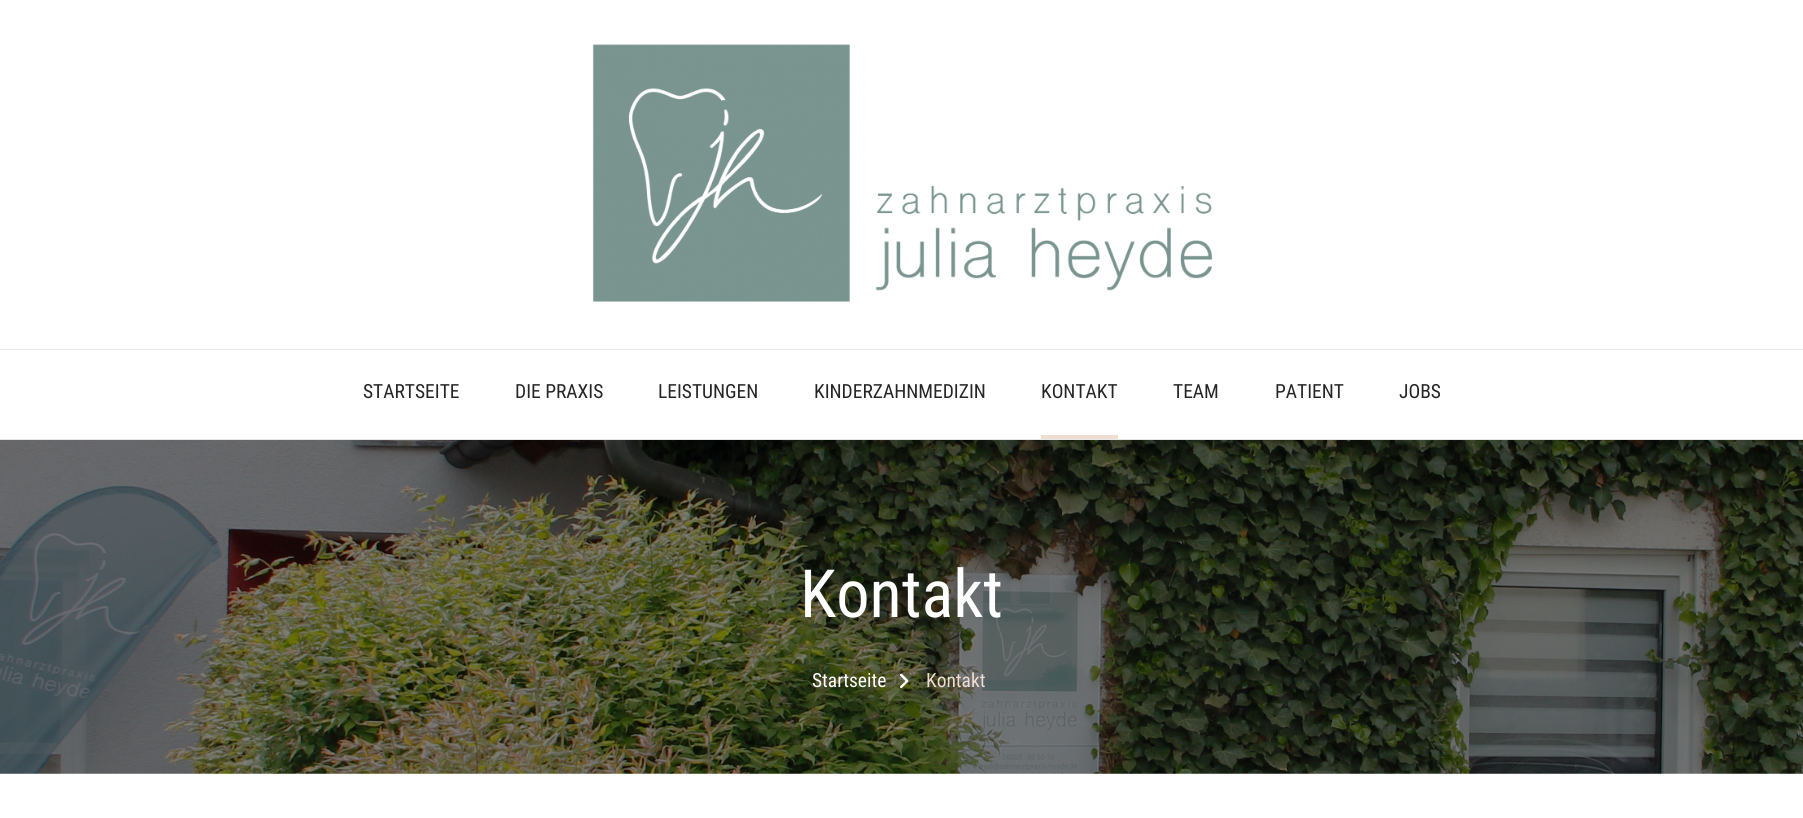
#include <cairo/cairo.h>
#include <math.h>
#include <stddef.h>

typedef struct { double x, y; const char *s; } line_t;
typedef struct { double x, y, w, h; unsigned color; } box_t;
static cairo_t *cr;

static void rgb(unsigned color)
{
	cairo_set_source_rgb(cr, (color >> 16) / 255.0, (color >> 8 & 255) / 255.0, (color & 255) / 255.0);
}

static void image(const char *path, double x, double y, double w, double h)
{
	cairo_surface_t *image = cairo_image_surface_create_from_png(path);
	cairo_save(cr);
	cairo_set_source_surface(cr, image, x, y);
	cairo_rectangle(cr, x, y, w, h);
	cairo_fill(cr);
	cairo_restore(cr);
	cairo_surface_destroy(image);
}

int main(void) {
	cairo_surface_t *surface = cairo_image_surface_create(CAIRO_FORMAT_RGB24, 1803, 818);
	cr = cairo_create(surface);
	cairo_font_options_t *options = cairo_font_options_create();
	cairo_font_options_set_hint_metrics(options, CAIRO_HINT_METRICS_OFF);
	cairo_font_options_set_hint_style(options, CAIRO_HINT_STYLE_NONE);
	cairo_set_font_options(cr, options);
	cairo_set_miter_limit(cr, 4);
	rgb(0xffffff);
	cairo_paint(cr);
	image("img/1.png", 592, 44, 621, 258);
	{
		static const box_t items[] = {
			{0, 349, 1803, 1, 0xe6e6e6},
			{0, 439, 1803, 1, 0xe6e6e6},
			{1041, 435, 77, 4, 0xefddd1},
		};
		for (size_t i = 0; i < sizeof items / sizeof *items; i++) {
			rgb(items[i].color);
			cairo_rectangle(cr, items[i].x, items[i].y, items[i].w, items[i].h);
			cairo_fill(cr);
		}
	}
	image("img/2.png", 0, 440, 1803, 334);
	image("img/3.png", 899, 673, 10, 16);
	cairo_select_font_face(cr, "Roboto Condensed", CAIRO_FONT_SLANT_NORMAL, CAIRO_FONT_WEIGHT_NORMAL);
	cairo_set_font_size(cr, 19.5);
	rgb(0x262525);
	{
		static const line_t items[] = {
			{363, 398, "STARTSEITE"},
			{515, 398, "DIE PRAXIS"},
			{658, 398, "LEISTUNGEN"},
			{814, 398, "KINDERZAHNMEDIZIN"},
			{1041, 398, "KONTAKT"},
			{1173, 398, "TEAM"},
			{1275, 398, "PATIENT"},
			{1399, 398, "JOBS"},
		};
		for (size_t i = 0; i < sizeof items / sizeof *items; i++) {
			cairo_move_to(cr, items[i].x, items[i].y);
			cairo_show_text(cr, items[i].s);
		}
	}
	cairo_set_font_size(cr, 66.5);
	rgb(0xffffff);
	cairo_move_to(cr, 800, 617);
	cairo_show_text(cr, "Kontakt");
	cairo_set_font_size(cr, 19.5);
	cairo_move_to(cr, 812, 687);
	cairo_show_text(cr, "Startseite");
	rgb(0xefddd1);
	cairo_move_to(cr, 926, 687);
	cairo_show_text(cr, "Kontakt");
	cairo_surface_write_to_png(surface, "page.png");
	cairo_font_options_destroy(options);
	cairo_destroy(cr);
	cairo_surface_destroy(surface);
	return 0;
}
